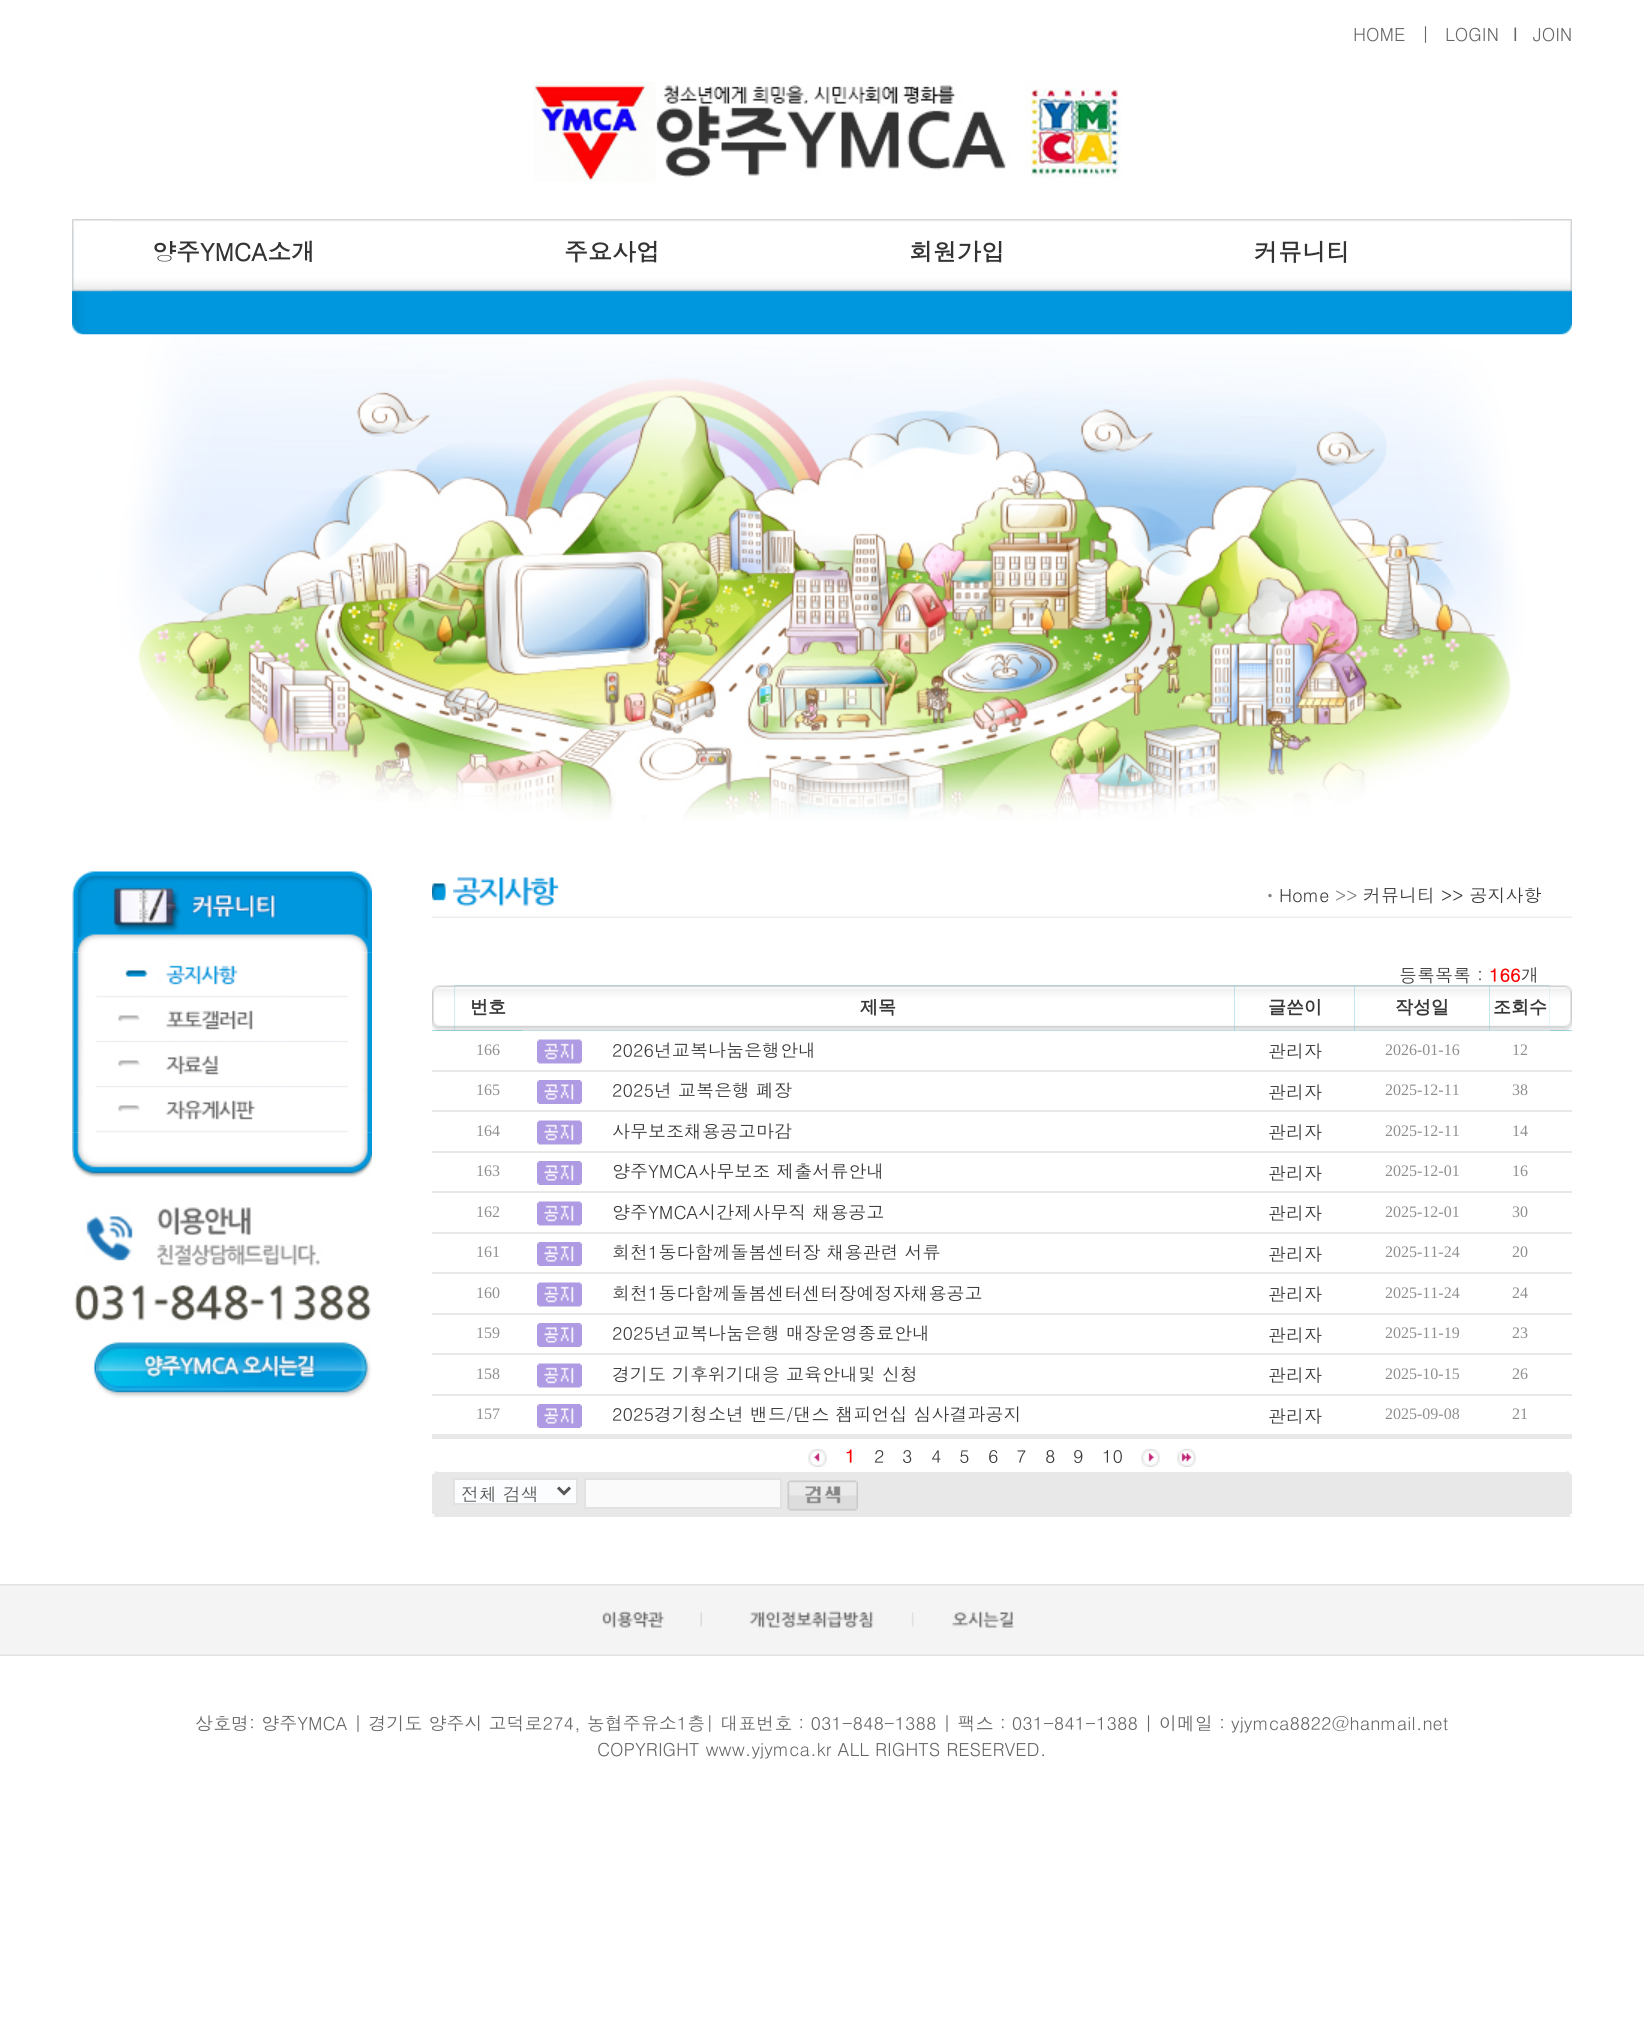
#include <cairo/cairo.h>
#include <math.h>
#include <stddef.h>

typedef struct { double x, y; const char *s; } line_t;
static cairo_t *cr;

static void rgb(unsigned color)
{
	cairo_set_source_rgb(cr, (color >> 16) / 255.0, (color >> 8 & 255) / 255.0, (color & 255) / 255.0);
}

static void image(const char *path, double x, double y, double w, double h)
{
	cairo_surface_t *image = cairo_image_surface_create_from_png(path);
	cairo_save(cr);
	cairo_set_source_surface(cr, image, x, y);
	cairo_rectangle(cr, x, y, w, h);
	cairo_fill(cr);
	cairo_restore(cr);
	cairo_surface_destroy(image);
}

int main(void) {
	cairo_surface_t *surface = cairo_image_surface_create(CAIRO_FORMAT_RGB24, 1644, 2020);
	cr = cairo_create(surface);
	cairo_font_options_t *options = cairo_font_options_create();
	cairo_font_options_set_hint_metrics(options, CAIRO_HINT_METRICS_OFF);
	cairo_font_options_set_hint_style(options, CAIRO_HINT_STYLE_NONE);
	cairo_set_font_options(cr, options);
	cairo_set_miter_limit(cr, 4);
	rgb(0xffffff);
	cairo_paint(cr);
	image("img/1.png", 533, 81, 588, 101);
	image("img/2.png", 72, 219, 1500, 116);
	image("img/3.png", 78, 334, 1488, 486);
	image("img/5.png", 72, 952, 300, 181);
	image("img/4.png", 72, 871, 300, 82);
	image("img/6.png", 72, 952, 300, 46);
	image("img/7.png", 77, 997, 271, 46);
	image("img/8.png", 77, 1042, 271, 46);
	image("img/9.png", 72, 1087, 300, 46);
	image("img/10.png", 72, 1132, 300, 46);
	image("img/11.png", 74, 1207, 298, 191);
	image("img/12.png", 432, 883, 14, 18);
	image("img/13.png", 453, 877, 106, 30);
	image("img/14.png", 432, 916, 1140, 2);
	rgb(0x41b5cf);
	cairo_rectangle(cr, 432, 986, 1140, 45);
	cairo_fill(cr);
	image("img/16.png", 454, 985, 68, 46);
	image("img/15.png", 432, 985, 23, 46);
	rgb(0xffffff);
	cairo_rectangle(cr, 522, 986, 1028, 45);
	cairo_fill(cr);
	image("img/17.png", 522, 985, 713, 46);
	image("img/18.png", 1234, 985, 121, 46);
	image("img/19.png", 1354, 985, 136, 46);
	image("img/20.png", 1489, 985, 61, 46);
	image("img/21.png", 1549, 985, 23, 46);
	image("img/22.png", 537, 1039, 45, 25);
	rgb(0xe8e8e8);
	cairo_rectangle(cr, 432, 1070, 1140, 2);
	cairo_fill(cr);
	image("img/23.png", 537, 1080, 45, 24);
	cairo_rectangle(cr, 432, 1110, 1140, 2);
	cairo_fill(cr);
	image("img/22.png", 537, 1120, 45, 25);
	cairo_rectangle(cr, 432, 1151, 1140, 2);
	cairo_fill(cr);
	image("img/23.png", 537, 1161, 45, 24);
	cairo_rectangle(cr, 432, 1191, 1140, 2);
	cairo_fill(cr);
	image("img/22.png", 537, 1201, 45, 25);
	cairo_rectangle(cr, 432, 1232, 1140, 2);
	cairo_fill(cr);
	image("img/23.png", 537, 1242, 45, 24);
	cairo_rectangle(cr, 432, 1272, 1140, 2);
	cairo_fill(cr);
	image("img/22.png", 537, 1282, 45, 25);
	cairo_rectangle(cr, 432, 1313, 1140, 2);
	cairo_fill(cr);
	image("img/23.png", 537, 1323, 45, 24);
	cairo_rectangle(cr, 432, 1353, 1140, 2);
	cairo_fill(cr);
	image("img/22.png", 537, 1363, 45, 25);
	cairo_rectangle(cr, 432, 1394, 1140, 2);
	cairo_fill(cr);
	image("img/23.png", 537, 1404, 45, 24);
	cairo_rectangle(cr, 432, 1434, 1140, 5);
	cairo_fill(cr);
	image("img/24.png", 808, 1449, 19, 18);
	image("img/25.png", 1141, 1449, 19, 18);
	image("img/26.png", 1177, 1449, 19, 18);
	cairo_rectangle(cr, 432, 1472, 1140, 45);
	cairo_fill(cr);
	image("img/27.png", 432, 1471, 6, 46);
	rgb(0xfcfdfe);
	cairo_rectangle(cr, 454, 1479, 123, 25);
	cairo_fill_preserve(cr);
	rgb(0xe2e2e2);
	cairo_stroke(cr);
	cairo_new_path(cr);
	cairo_move_to(cr, 558, 1487.5);
	cairo_line_to(cr, 564, 1493.5);
	cairo_line_to(cr, 570, 1487.5);
	rgb(0x565656);
	cairo_set_line_width(cr, 3);
	cairo_stroke(cr);
	rgb(0xfafafa);
	cairo_rectangle(cr, 585, 1479, 196, 29);
	cairo_fill_preserve(cr);
	rgb(0xe2e2e2);
	cairo_set_line_width(cr, 2);
	cairo_stroke(cr);
	image("img/28.png", 787, 1480, 71, 31);
	image("img/29.png", 1566, 1471, 6, 46);
	image("img/30.png", 0, 1584, 1644, 72);
	image("img/31.png", 602, 1611, 100, 17);
	image("img/32.png", 749, 1610, 165, 18);
	image("img/33.png", 913, 1611, 101, 17);
	cairo_select_font_face(cr, "Dotum", CAIRO_FONT_SLANT_NORMAL, CAIRO_FONT_WEIGHT_NORMAL);
	cairo_set_font_size(cr, 18);
	rgb(0x666666);
	{
		static const line_t items[] = {
			{1353, 41, "HOME"},
			{1421, 41, "|"},
			{1445, 41, "LOGIN"},
		};
		for (size_t i = 0; i < sizeof items / sizeof *items; i++) {
			cairo_move_to(cr, items[i].x, items[i].y);
			cairo_show_text(cr, items[i].s);
		}
	}
	cairo_select_font_face(cr, "Dotum", CAIRO_FONT_SLANT_NORMAL, CAIRO_FONT_WEIGHT_BOLD);
	cairo_move_to(cr, 1513, 41);
	cairo_show_text(cr, "l");
	cairo_select_font_face(cr, "Dotum", CAIRO_FONT_SLANT_NORMAL, CAIRO_FONT_WEIGHT_NORMAL);
	cairo_move_to(cr, 1533, 41);
	cairo_show_text(cr, "JOIN");
	cairo_select_font_face(cr, "Dotum", CAIRO_FONT_SLANT_NORMAL, CAIRO_FONT_WEIGHT_BOLD);
	cairo_set_font_size(cr, 24);
	rgb(0x333333);
	{
		static const line_t items[] = {
			{152, 261, "양주YMCA소개"},
			{564, 261, "주요사업"},
			{909, 261, "회원가입"},
			{1254, 261, "커뮤니티"},
		};
		for (size_t i = 0; i < sizeof items / sizeof *items; i++) {
			cairo_move_to(cr, items[i].x, items[i].y);
			cairo_show_text(cr, items[i].s);
		}
	}
	cairo_select_font_face(cr, "Dotum", CAIRO_FONT_SLANT_NORMAL, CAIRO_FONT_WEIGHT_NORMAL);
	cairo_set_font_size(cr, 18);
	rgb(0x808080);
	cairo_move_to(cr, 1261, 902);
	cairo_show_text(cr, "ㆍ");
	rgb(0x393939);
	cairo_move_to(cr, 1279, 902);
	cairo_show_text(cr, "Home");
	rgb(0x808080);
	cairo_move_to(cr, 1335, 902);
	cairo_show_text(cr, ">>");
	rgb(0x393939);
	cairo_move_to(cr, 1363, 902);
	cairo_show_text(cr, "커뮤니티 >> 공지사항");
	cairo_move_to(cr, 1399, 982);
	cairo_show_text(cr, "등록목록 :");
	cairo_select_font_face(cr, "Dotum", CAIRO_FONT_SLANT_NORMAL, CAIRO_FONT_WEIGHT_BOLD);
	rgb(0xff0000);
	cairo_move_to(cr, 1489, 982);
	cairo_show_text(cr, "166");
	cairo_select_font_face(cr, "Dotum", CAIRO_FONT_SLANT_NORMAL, CAIRO_FONT_WEIGHT_NORMAL);
	rgb(0x393939);
	cairo_move_to(cr, 1521, 982);
	cairo_show_text(cr, "개");
	cairo_select_font_face(cr, "WenQuanYi Zen Hei", CAIRO_FONT_SLANT_NORMAL, CAIRO_FONT_WEIGHT_BOLD);
	{
		static const line_t items[] = {
			{470, 1013, "번호"},
			{860, 1013, "제목"},
			{1268, 1013, "글쓴이"},
			{1395, 1013, "작성일"},
			{1493, 1013, "조회수"},
		};
		for (size_t i = 0; i < sizeof items / sizeof *items; i++) {
			cairo_move_to(cr, items[i].x, items[i].y);
			cairo_show_text(cr, items[i].s);
		}
	}
	cairo_select_font_face(cr, "Liberation Serif", CAIRO_FONT_SLANT_NORMAL, CAIRO_FONT_WEIGHT_NORMAL);
	cairo_set_font_size(cr, 16);
	rgb(0x8f8f8f);
	cairo_move_to(cr, 476, 1055);
	cairo_show_text(cr, "166");
	cairo_select_font_face(cr, "Dotum", CAIRO_FONT_SLANT_NORMAL, CAIRO_FONT_WEIGHT_NORMAL);
	cairo_set_font_size(cr, 18);
	rgb(0x393939);
	cairo_move_to(cr, 612, 1057);
	cairo_show_text(cr, "2026년교복나눔은행안내");
	cairo_move_to(cr, 1268, 1058);
	cairo_show_text(cr, "관리자");
	cairo_select_font_face(cr, "Liberation Serif", CAIRO_FONT_SLANT_NORMAL, CAIRO_FONT_WEIGHT_NORMAL);
	cairo_set_font_size(cr, 16);
	rgb(0x8f8f8f);
	{
		static const line_t items[] = {
			{1385, 1055, "2026-01-16"},
			{1512, 1055, "12"},
			{476, 1095, "165"},
		};
		for (size_t i = 0; i < sizeof items / sizeof *items; i++) {
			cairo_move_to(cr, items[i].x, items[i].y);
			cairo_show_text(cr, items[i].s);
		}
	}
	cairo_select_font_face(cr, "Dotum", CAIRO_FONT_SLANT_NORMAL, CAIRO_FONT_WEIGHT_NORMAL);
	cairo_set_font_size(cr, 18);
	rgb(0x393939);
	cairo_move_to(cr, 612, 1097);
	cairo_show_text(cr, "2025년 교복은행 폐장");
	cairo_move_to(cr, 1268, 1099);
	cairo_show_text(cr, "관리자");
	cairo_select_font_face(cr, "Liberation Serif", CAIRO_FONT_SLANT_NORMAL, CAIRO_FONT_WEIGHT_NORMAL);
	cairo_set_font_size(cr, 16);
	rgb(0x8f8f8f);
	{
		static const line_t items[] = {
			{1385, 1095, "2025-12-11"},
			{1512, 1095, "38"},
			{476, 1136, "164"},
		};
		for (size_t i = 0; i < sizeof items / sizeof *items; i++) {
			cairo_move_to(cr, items[i].x, items[i].y);
			cairo_show_text(cr, items[i].s);
		}
	}
	cairo_select_font_face(cr, "Dotum", CAIRO_FONT_SLANT_NORMAL, CAIRO_FONT_WEIGHT_NORMAL);
	cairo_set_font_size(cr, 18);
	rgb(0x393939);
	cairo_move_to(cr, 612, 1138);
	cairo_show_text(cr, "사무보조채용공고마감");
	cairo_move_to(cr, 1268, 1139);
	cairo_show_text(cr, "관리자");
	cairo_select_font_face(cr, "Liberation Serif", CAIRO_FONT_SLANT_NORMAL, CAIRO_FONT_WEIGHT_NORMAL);
	cairo_set_font_size(cr, 16);
	rgb(0x8f8f8f);
	{
		static const line_t items[] = {
			{1385, 1136, "2025-12-11"},
			{1512, 1136, "14"},
			{476, 1176, "163"},
		};
		for (size_t i = 0; i < sizeof items / sizeof *items; i++) {
			cairo_move_to(cr, items[i].x, items[i].y);
			cairo_show_text(cr, items[i].s);
		}
	}
	cairo_select_font_face(cr, "Dotum", CAIRO_FONT_SLANT_NORMAL, CAIRO_FONT_WEIGHT_NORMAL);
	cairo_set_font_size(cr, 18);
	rgb(0x393939);
	cairo_move_to(cr, 612, 1178);
	cairo_show_text(cr, "양주YMCA사무보조 제출서류안내");
	cairo_move_to(cr, 1268, 1180);
	cairo_show_text(cr, "관리자");
	cairo_select_font_face(cr, "Liberation Serif", CAIRO_FONT_SLANT_NORMAL, CAIRO_FONT_WEIGHT_NORMAL);
	cairo_set_font_size(cr, 16);
	rgb(0x8f8f8f);
	{
		static const line_t items[] = {
			{1385, 1176, "2025-12-01"},
			{1512, 1176, "16"},
			{476, 1217, "162"},
		};
		for (size_t i = 0; i < sizeof items / sizeof *items; i++) {
			cairo_move_to(cr, items[i].x, items[i].y);
			cairo_show_text(cr, items[i].s);
		}
	}
	cairo_select_font_face(cr, "Dotum", CAIRO_FONT_SLANT_NORMAL, CAIRO_FONT_WEIGHT_NORMAL);
	cairo_set_font_size(cr, 18);
	rgb(0x393939);
	cairo_move_to(cr, 612, 1219);
	cairo_show_text(cr, "양주YMCA시간제사무직 채용공고");
	cairo_move_to(cr, 1268, 1220);
	cairo_show_text(cr, "관리자");
	cairo_select_font_face(cr, "Liberation Serif", CAIRO_FONT_SLANT_NORMAL, CAIRO_FONT_WEIGHT_NORMAL);
	cairo_set_font_size(cr, 16);
	rgb(0x8f8f8f);
	{
		static const line_t items[] = {
			{1385, 1217, "2025-12-01"},
			{1512, 1217, "30"},
			{476, 1257, "161"},
		};
		for (size_t i = 0; i < sizeof items / sizeof *items; i++) {
			cairo_move_to(cr, items[i].x, items[i].y);
			cairo_show_text(cr, items[i].s);
		}
	}
	cairo_select_font_face(cr, "Dotum", CAIRO_FONT_SLANT_NORMAL, CAIRO_FONT_WEIGHT_NORMAL);
	cairo_set_font_size(cr, 18);
	rgb(0x393939);
	cairo_move_to(cr, 612, 1259);
	cairo_show_text(cr, "회천1동다함께돌봄센터장 채용관련 서류");
	cairo_move_to(cr, 1268, 1261);
	cairo_show_text(cr, "관리자");
	cairo_select_font_face(cr, "Liberation Serif", CAIRO_FONT_SLANT_NORMAL, CAIRO_FONT_WEIGHT_NORMAL);
	cairo_set_font_size(cr, 16);
	rgb(0x8f8f8f);
	{
		static const line_t items[] = {
			{1385, 1257, "2025-11-24"},
			{1512, 1257, "20"},
			{476, 1298, "160"},
		};
		for (size_t i = 0; i < sizeof items / sizeof *items; i++) {
			cairo_move_to(cr, items[i].x, items[i].y);
			cairo_show_text(cr, items[i].s);
		}
	}
	cairo_select_font_face(cr, "Dotum", CAIRO_FONT_SLANT_NORMAL, CAIRO_FONT_WEIGHT_NORMAL);
	cairo_set_font_size(cr, 18);
	rgb(0x393939);
	cairo_move_to(cr, 612, 1300);
	cairo_show_text(cr, "회천1동다함께돌봄센터센터장예정자채용공고");
	cairo_move_to(cr, 1268, 1301);
	cairo_show_text(cr, "관리자");
	cairo_select_font_face(cr, "Liberation Serif", CAIRO_FONT_SLANT_NORMAL, CAIRO_FONT_WEIGHT_NORMAL);
	cairo_set_font_size(cr, 16);
	rgb(0x8f8f8f);
	{
		static const line_t items[] = {
			{1385, 1298, "2025-11-24"},
			{1512, 1298, "24"},
			{476, 1338, "159"},
		};
		for (size_t i = 0; i < sizeof items / sizeof *items; i++) {
			cairo_move_to(cr, items[i].x, items[i].y);
			cairo_show_text(cr, items[i].s);
		}
	}
	cairo_select_font_face(cr, "Dotum", CAIRO_FONT_SLANT_NORMAL, CAIRO_FONT_WEIGHT_NORMAL);
	cairo_set_font_size(cr, 18);
	rgb(0x393939);
	cairo_move_to(cr, 612, 1340);
	cairo_show_text(cr, "2025년교복나눔은행 매장운영종료안내");
	cairo_move_to(cr, 1268, 1342);
	cairo_show_text(cr, "관리자");
	cairo_select_font_face(cr, "Liberation Serif", CAIRO_FONT_SLANT_NORMAL, CAIRO_FONT_WEIGHT_NORMAL);
	cairo_set_font_size(cr, 16);
	rgb(0x8f8f8f);
	{
		static const line_t items[] = {
			{1385, 1338, "2025-11-19"},
			{1512, 1338, "23"},
			{476, 1379, "158"},
		};
		for (size_t i = 0; i < sizeof items / sizeof *items; i++) {
			cairo_move_to(cr, items[i].x, items[i].y);
			cairo_show_text(cr, items[i].s);
		}
	}
	cairo_select_font_face(cr, "Dotum", CAIRO_FONT_SLANT_NORMAL, CAIRO_FONT_WEIGHT_NORMAL);
	cairo_set_font_size(cr, 18);
	rgb(0x393939);
	cairo_move_to(cr, 612, 1381);
	cairo_show_text(cr, "경기도 기후위기대응 교육안내및 신청");
	cairo_move_to(cr, 1268, 1382);
	cairo_show_text(cr, "관리자");
	cairo_select_font_face(cr, "Liberation Serif", CAIRO_FONT_SLANT_NORMAL, CAIRO_FONT_WEIGHT_NORMAL);
	cairo_set_font_size(cr, 16);
	rgb(0x8f8f8f);
	{
		static const line_t items[] = {
			{1385, 1379, "2025-10-15"},
			{1512, 1379, "26"},
			{476, 1419, "157"},
		};
		for (size_t i = 0; i < sizeof items / sizeof *items; i++) {
			cairo_move_to(cr, items[i].x, items[i].y);
			cairo_show_text(cr, items[i].s);
		}
	}
	cairo_select_font_face(cr, "Dotum", CAIRO_FONT_SLANT_NORMAL, CAIRO_FONT_WEIGHT_NORMAL);
	cairo_set_font_size(cr, 18);
	rgb(0x393939);
	cairo_move_to(cr, 612, 1421);
	cairo_show_text(cr, "2025경기청소년 밴드/댄스 챔피언십 심사결과공지");
	cairo_move_to(cr, 1268, 1423);
	cairo_show_text(cr, "관리자");
	cairo_select_font_face(cr, "Liberation Serif", CAIRO_FONT_SLANT_NORMAL, CAIRO_FONT_WEIGHT_NORMAL);
	cairo_set_font_size(cr, 16);
	rgb(0x8f8f8f);
	cairo_move_to(cr, 1385, 1419);
	cairo_show_text(cr, "2025-09-08");
	cairo_move_to(cr, 1512, 1419);
	cairo_show_text(cr, "21");
	cairo_select_font_face(cr, "Dotum", CAIRO_FONT_SLANT_NORMAL, CAIRO_FONT_WEIGHT_BOLD);
	cairo_set_font_size(cr, 18);
	rgb(0xff0000);
	cairo_move_to(cr, 845, 1463);
	cairo_show_text(cr, "1");
	cairo_select_font_face(cr, "Dotum", CAIRO_FONT_SLANT_NORMAL, CAIRO_FONT_WEIGHT_NORMAL);
	rgb(0x393939);
	{
		static const line_t items[] = {
			{874, 1463, "2"},
			{902, 1463, "3"},
			{931, 1463, "4"},
			{959, 1463, "5"},
			{988, 1463, "6"},
			{1016, 1463, "7"},
			{1045, 1463, "8"},
			{1073, 1463, "9"},
			{1102, 1463, "10"},
		};
		for (size_t i = 0; i < sizeof items / sizeof *items; i++) {
			cairo_move_to(cr, items[i].x, items[i].y);
			cairo_show_text(cr, items[i].s);
		}
	}
	rgb(0x565656);
	cairo_move_to(cr, 461, 1501);
	cairo_show_text(cr, "전체 검색");
	rgb(0x666666);
	cairo_move_to(cr, 195, 1730);
	cairo_show_text(cr, "상호명: 양주YMCA | 경기도 양주시 고덕로274, 농협주유소1층| 대표번호 : 031-848-1388 | 팩스 : 031-841-1388 | 이메일 : yjymca8822@hanmail.net");
	cairo_move_to(cr, 597, 1756);
	cairo_show_text(cr, "COPYRIGHT www.yjymca.kr ALL RIGHTS RESERVED.");
	cairo_surface_write_to_png(surface, "page.png");
	cairo_font_options_destroy(options);
	cairo_destroy(cr);
	cairo_surface_destroy(surface);
	return 0;
}
